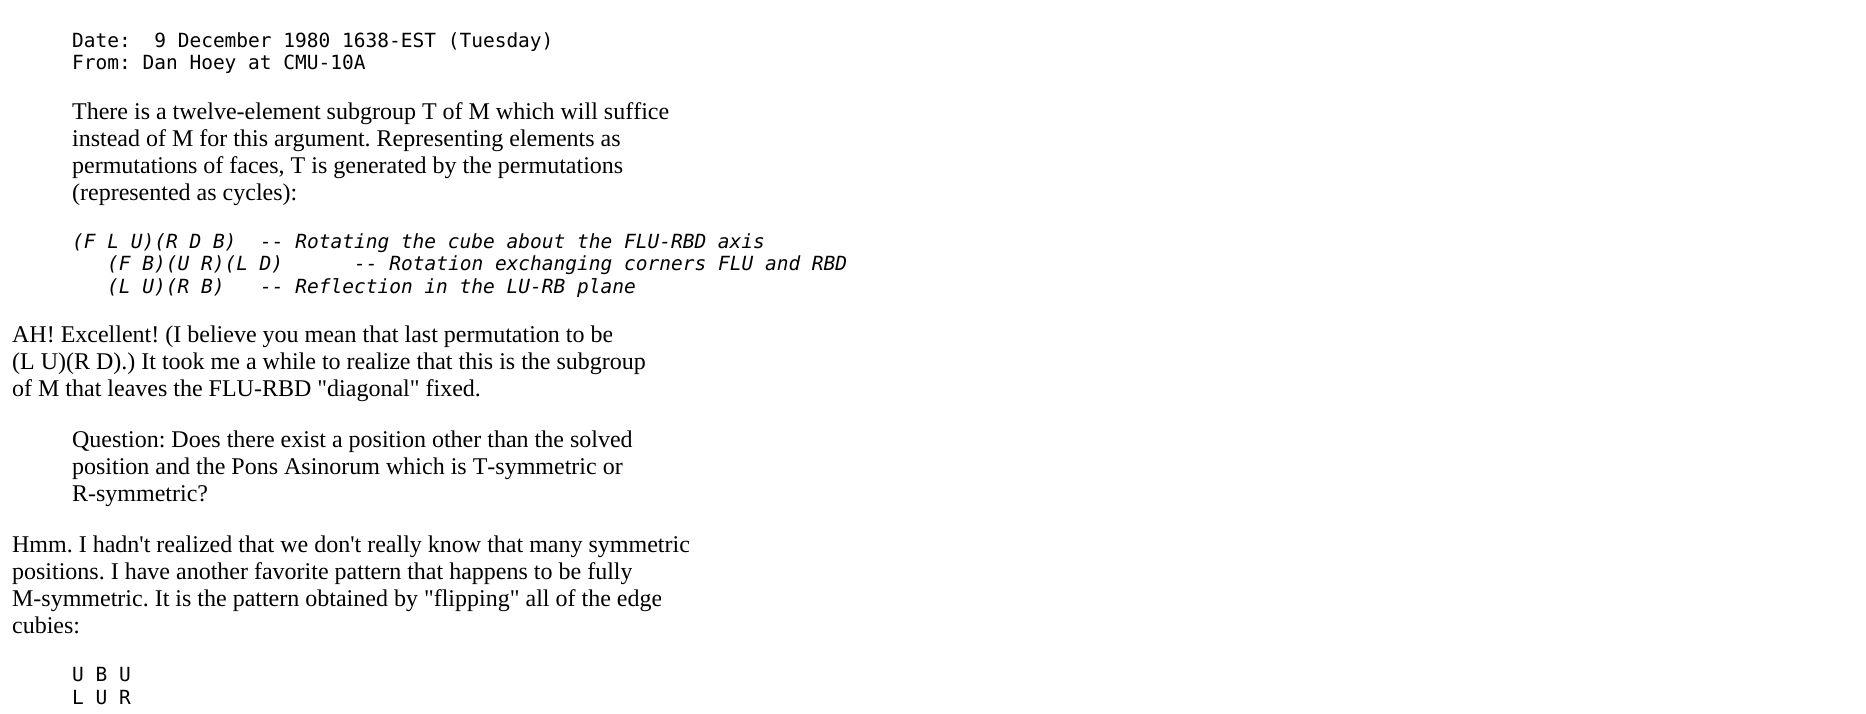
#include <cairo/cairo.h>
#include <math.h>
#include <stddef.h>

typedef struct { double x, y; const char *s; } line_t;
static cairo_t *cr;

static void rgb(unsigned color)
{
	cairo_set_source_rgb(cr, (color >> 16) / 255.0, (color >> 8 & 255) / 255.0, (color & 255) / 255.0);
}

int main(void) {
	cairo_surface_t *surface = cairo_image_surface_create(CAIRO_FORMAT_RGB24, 1866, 714);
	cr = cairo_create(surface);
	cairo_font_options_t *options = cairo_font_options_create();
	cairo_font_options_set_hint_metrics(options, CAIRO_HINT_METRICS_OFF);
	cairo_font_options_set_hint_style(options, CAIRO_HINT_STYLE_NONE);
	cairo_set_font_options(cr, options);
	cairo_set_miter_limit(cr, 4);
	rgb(0xffffff);
	cairo_paint(cr);
	cairo_select_font_face(cr, "DejaVu Sans Mono", CAIRO_FONT_SLANT_NORMAL, CAIRO_FONT_WEIGHT_NORMAL);
	cairo_set_font_size(cr, 19.5);
	rgb(0x000000);
	cairo_move_to(cr, 72, 47);
	cairo_show_text(cr, "Date:  9 December 1980 1638-EST (Tuesday)");
	cairo_move_to(cr, 72, 69);
	cairo_show_text(cr, "From: Dan Hoey at CMU-10A");
	cairo_select_font_face(cr, "Liberation Serif", CAIRO_FONT_SLANT_NORMAL, CAIRO_FONT_WEIGHT_NORMAL);
	cairo_set_font_size(cr, 24);
	{
		static const line_t items[] = {
			{72, 119, "There is a twelve-element subgroup T of M which will suffice"},
			{72, 146, "instead of M for this argument. Representing elements as"},
			{72, 173, "permutations of faces, T is generated by the permutations"},
			{72, 200, "(represented as cycles):"},
		};
		for (size_t i = 0; i < sizeof items / sizeof *items; i++) {
			cairo_move_to(cr, items[i].x, items[i].y);
			cairo_show_text(cr, items[i].s);
		}
	}
	cairo_select_font_face(cr, "DejaVu Sans Mono", CAIRO_FONT_SLANT_ITALIC, CAIRO_FONT_WEIGHT_NORMAL);
	cairo_set_font_size(cr, 19.5);
	{
		static const line_t items[] = {
			{72, 248, "(F L U)(R D B)"},
			{260, 248, "-- Rotating the cube about the FLU-RBD axis"},
			{107, 270, "(F B)(U R)(L D)"},
			{354, 270, "-- Rotation exchanging corners FLU and RBD"},
			{107, 293, "(L U)(R B)"},
			{260, 293, "-- Reflection in the LU-RB plane"},
		};
		for (size_t i = 0; i < sizeof items / sizeof *items; i++) {
			cairo_move_to(cr, items[i].x, items[i].y);
			cairo_show_text(cr, items[i].s);
		}
	}
	cairo_select_font_face(cr, "Liberation Serif", CAIRO_FONT_SLANT_NORMAL, CAIRO_FONT_WEIGHT_NORMAL);
	cairo_set_font_size(cr, 24);
	{
		static const line_t items[] = {
			{12, 342, "AH! Excellent! (I believe you mean that last permutation to be"},
			{12, 369, "(L U)(R D).) It took me a while to realize that this is the subgroup"},
			{12, 396, "of M that leaves the FLU-RBD \"diagonal\" fixed."},
			{72, 447, "Question: Does there exist a position other than the solved"},
			{72, 474, "position and the Pons Asinorum which is T-symmetric or"},
			{72, 501, "R-symmetric?"},
			{12, 552, "Hmm. I hadn't realized that we don't really know that many symmetric"},
			{12, 579, "positions. I have another favorite pattern that happens to be fully"},
			{12, 606, "M-symmetric. It is the pattern obtained by \"flipping\" all of the edge"},
			{12, 633, "cubies:"},
		};
		for (size_t i = 0; i < sizeof items / sizeof *items; i++) {
			cairo_move_to(cr, items[i].x, items[i].y);
			cairo_show_text(cr, items[i].s);
		}
	}
	cairo_select_font_face(cr, "DejaVu Sans Mono", CAIRO_FONT_SLANT_NORMAL, CAIRO_FONT_WEIGHT_NORMAL);
	cairo_set_font_size(cr, 19.5);
	cairo_move_to(cr, 72, 681);
	cairo_show_text(cr, "U B U");
	cairo_move_to(cr, 72, 704);
	cairo_show_text(cr, "L U R");
	cairo_surface_write_to_png(surface, "page.png");
	cairo_font_options_destroy(options);
	cairo_destroy(cr);
	cairo_surface_destroy(surface);
	return 0;
}
